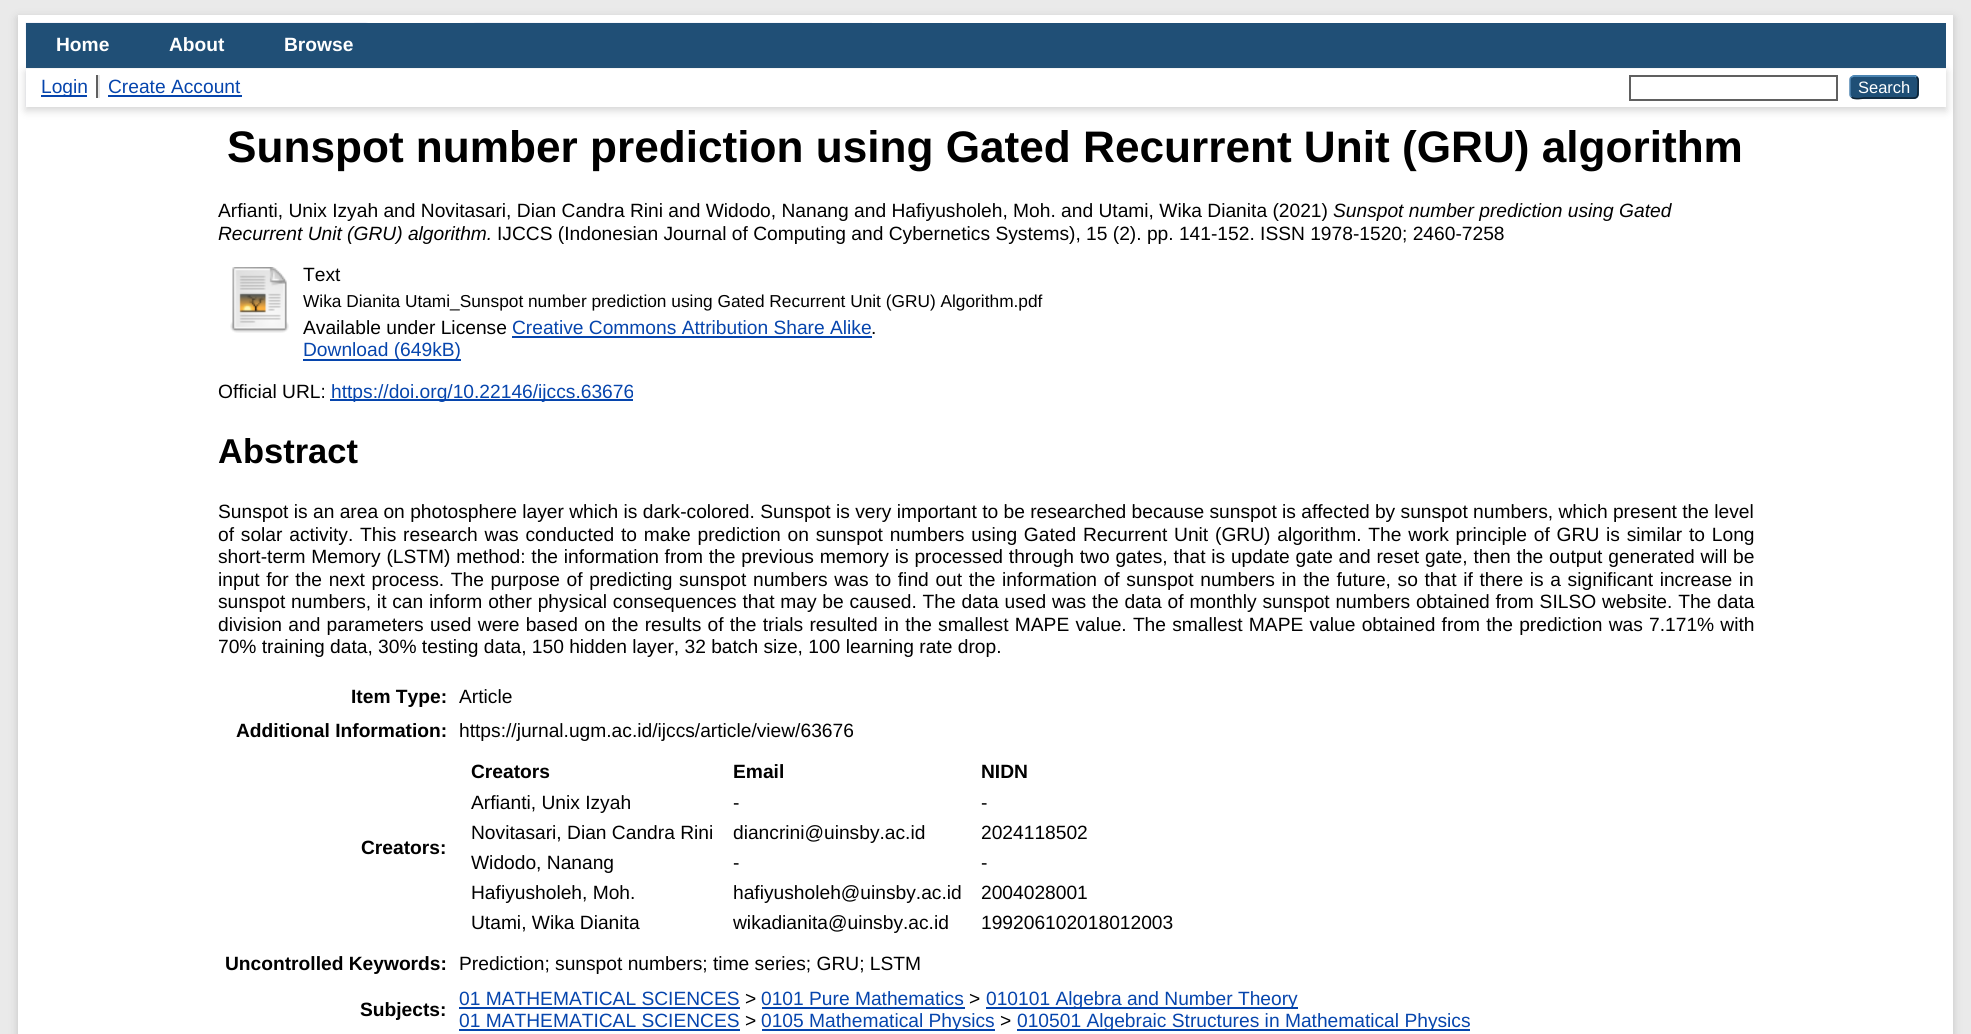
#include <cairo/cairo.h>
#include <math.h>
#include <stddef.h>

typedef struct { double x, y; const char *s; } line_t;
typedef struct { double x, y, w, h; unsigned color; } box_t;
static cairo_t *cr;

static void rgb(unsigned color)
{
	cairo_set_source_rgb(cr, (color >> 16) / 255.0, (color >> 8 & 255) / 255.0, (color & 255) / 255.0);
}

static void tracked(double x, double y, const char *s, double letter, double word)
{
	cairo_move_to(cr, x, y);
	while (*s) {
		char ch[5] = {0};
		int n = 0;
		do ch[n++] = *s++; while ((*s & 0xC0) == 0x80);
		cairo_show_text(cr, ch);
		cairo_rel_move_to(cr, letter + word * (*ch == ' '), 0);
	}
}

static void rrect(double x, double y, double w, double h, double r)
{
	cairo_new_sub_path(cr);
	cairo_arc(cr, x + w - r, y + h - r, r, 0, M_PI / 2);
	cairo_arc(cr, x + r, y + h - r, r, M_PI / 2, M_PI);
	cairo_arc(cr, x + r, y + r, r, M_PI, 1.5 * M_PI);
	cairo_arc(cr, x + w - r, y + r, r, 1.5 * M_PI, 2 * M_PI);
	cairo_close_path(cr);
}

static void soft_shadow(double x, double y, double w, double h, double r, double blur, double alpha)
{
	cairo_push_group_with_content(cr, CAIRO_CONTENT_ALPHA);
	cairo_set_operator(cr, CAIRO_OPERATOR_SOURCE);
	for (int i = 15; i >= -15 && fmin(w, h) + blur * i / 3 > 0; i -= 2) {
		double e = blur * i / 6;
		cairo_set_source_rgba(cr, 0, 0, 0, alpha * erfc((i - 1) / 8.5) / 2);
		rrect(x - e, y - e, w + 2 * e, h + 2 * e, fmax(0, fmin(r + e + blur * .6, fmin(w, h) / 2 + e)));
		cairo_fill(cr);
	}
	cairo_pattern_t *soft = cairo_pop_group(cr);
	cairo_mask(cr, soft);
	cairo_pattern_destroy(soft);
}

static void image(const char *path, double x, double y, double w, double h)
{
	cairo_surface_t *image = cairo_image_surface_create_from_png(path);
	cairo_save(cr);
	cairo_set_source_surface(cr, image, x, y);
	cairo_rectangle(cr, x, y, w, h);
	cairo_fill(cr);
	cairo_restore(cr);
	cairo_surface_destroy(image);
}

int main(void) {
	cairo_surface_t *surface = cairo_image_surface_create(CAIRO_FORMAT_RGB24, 1971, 1034);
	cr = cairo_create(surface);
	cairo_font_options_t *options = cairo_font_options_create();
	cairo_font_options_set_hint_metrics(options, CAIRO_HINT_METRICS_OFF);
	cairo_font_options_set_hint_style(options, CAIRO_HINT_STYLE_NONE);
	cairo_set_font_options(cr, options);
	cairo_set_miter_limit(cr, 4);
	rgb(0xeaeaea);
	cairo_paint(cr);
	rgb(0x646464);
	soft_shadow(18, 18, 1935, 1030, 0, 4.5, 0.3);
	rgb(0xffffff);
	cairo_rectangle(cr, 18, 15, 1935, 1019);
	cairo_fill(cr);
	image("img/1.png", 25, 22, 847, 84);
	rgb(0x204f76);
	cairo_rectangle(cr, 26, 23, 1920, 45);
	cairo_fill(cr);
	rgb(0xffffff);
	cairo_rectangle(cr, 26, 68, 846, 1);
	cairo_fill(cr);
	rgb(0x646464);
	soft_shadow(26, 72, 1920, 38, 0, 4.5, 0.3);
	{
		static const box_t items[] = {
			{26, 69, 1920, 38, 0xffffff},
			{96, 75, 2, 23, 0x606060},
			{41, 95, 46, 2, 0x0645ad},
			{98, 75, 2, 23, 0xe8e8e8},
			{108, 95, 134, 2, 0x0645ad},
		};
		for (size_t i = 0; i < sizeof items / sizeof *items; i++) {
			rgb(items[i].color);
			cairo_rectangle(cr, items[i].x, items[i].y, items[i].w, items[i].h);
			cairo_fill(cr);
		}
	}
	cairo_rectangle(cr, 1630, 76, 207, 24);
	rgb(0x606060);
	cairo_stroke(cr);
	rgb(0x1f4f76);
	rrect(1850, 75, 69, 24, 5);
	cairo_fill(cr);
	cairo_new_path(cr);
	cairo_move_to(cr, 1851.5, 77);
	cairo_line_to(cr, 1853.5, 76);
	cairo_line_to(cr, 1914.5, 76);
	cairo_line_to(cr, 1916.5, 77);
	rgb(0x5b97c7);
	cairo_set_line_width(cr, 1.5);
	cairo_stroke(cr);
	cairo_new_path(cr);
	cairo_move_to(cr, 1916.5, 77);
	cairo_curve_to(cr, 1919, 79, 1918, 84, 1918, 87);
	cairo_curve_to(cr, 1918, 100, 1918, 98, 1904, 98);
	cairo_line_to(cr, 1864, 98);
	cairo_curve_to(cr, 1863.5, 98, 1854, 100, 1851.5, 97);
	rgb(0x0d2131);
	cairo_stroke(cr);
	cairo_new_path(cr);
	cairo_move_to(cr, 1851.5, 97);
	cairo_curve_to(cr, 1850.5, 96.5, 1850, 95.5, 1850, 94.5);
	cairo_line_to(cr, 1850, 79.5);
	cairo_curve_to(cr, 1850, 78.5, 1850.5, 77.5, 1851.5, 77);
	rgb(0x5287b3);
	cairo_stroke(cr);
	image("img/2.png", 230, 267, 59, 66);
	{
		static const box_t items[] = {
			{512, 336, 360, 2, 0x0645ad},
			{303, 359, 158, 2, 0x0645ad},
			{330, 399, 303, 2, 0x0645ad},
			{459, 1007, 281, 2, 0x0645ad},
			{762, 1007, 203, 2, 0x0645ad},
			{986, 1007, 312, 2, 0x0645ad},
			{459, 1029, 281, 2, 0x0645ad},
			{762, 1029, 233, 2, 0x0645ad},
			{1017, 1029, 453, 2, 0x0645ad},
		};
		for (size_t i = 0; i < sizeof items / sizeof *items; i++) {
			rgb(items[i].color);
			cairo_rectangle(cr, items[i].x, items[i].y, items[i].w, items[i].h);
			cairo_fill(cr);
		}
	}
	cairo_select_font_face(cr, "Liberation Sans", CAIRO_FONT_SLANT_NORMAL, CAIRO_FONT_WEIGHT_BOLD);
	cairo_set_font_size(cr, 19.2);
	rgb(0xffffff);
	{
		static const line_t items[] = {
			{56, 51, "Home"},
			{169, 51, "About"},
			{284, 51, "Browse"},
		};
		for (size_t i = 0; i < sizeof items / sizeof *items; i++) {
			cairo_move_to(cr, items[i].x, items[i].y);
			cairo_show_text(cr, items[i].s);
		}
	}
	cairo_select_font_face(cr, "Liberation Sans", CAIRO_FONT_SLANT_NORMAL, CAIRO_FONT_WEIGHT_NORMAL);
	rgb(0x0645ad);
	cairo_move_to(cr, 41, 93);
	cairo_show_text(cr, "Login");
	cairo_move_to(cr, 108, 93);
	cairo_show_text(cr, "Create Account");
	cairo_set_font_size(cr, 16.5);
	rgb(0xffffff);
	cairo_move_to(cr, 1858, 93);
	cairo_show_text(cr, "Search");
	cairo_select_font_face(cr, "Liberation Sans", CAIRO_FONT_SLANT_NORMAL, CAIRO_FONT_WEIGHT_BOLD);
	cairo_set_font_size(cr, 44.15);
	rgb(0x000000);
	cairo_move_to(cr, 227, 162);
	cairo_show_text(cr, "Sunspot number prediction using Gated Recurrent Unit (GRU) algorithm");
	cairo_select_font_face(cr, "Liberation Sans", CAIRO_FONT_SLANT_NORMAL, CAIRO_FONT_WEIGHT_NORMAL);
	cairo_set_font_size(cr, 19.2);
	cairo_move_to(cr, 218, 217);
	cairo_show_text(cr, "Arfianti, Unix Izyah and Novitasari, Dian Candra Rini and Widodo, Nanang and Hafiyusholeh, Moh. and Utami, Wika Dianita (2021)");
	cairo_select_font_face(cr, "Liberation Sans", CAIRO_FONT_SLANT_ITALIC, CAIRO_FONT_WEIGHT_NORMAL);
	cairo_move_to(cr, 1333, 217);
	cairo_show_text(cr, "Sunspot number prediction using Gated");
	cairo_move_to(cr, 218, 240);
	cairo_show_text(cr, "Recurrent Unit (GRU) algorithm.");
	cairo_select_font_face(cr, "Liberation Sans", CAIRO_FONT_SLANT_NORMAL, CAIRO_FONT_WEIGHT_NORMAL);
	cairo_move_to(cr, 497, 240);
	cairo_show_text(cr, "IJCCS (Indonesian Journal of Computing and Cybernetics Systems), 15 (2). pp. 141-152. ISSN 1978-1520; 2460-7258");
	cairo_move_to(cr, 303, 281);
	cairo_show_text(cr, "Text");
	cairo_set_font_size(cr, 17.3);
	cairo_move_to(cr, 303, 307);
	cairo_show_text(cr, "Wika Dianita Utami_Sunspot number prediction using Gated Recurrent Unit (GRU) Algorithm.pdf");
	cairo_set_font_size(cr, 19.2);
	cairo_move_to(cr, 303, 334);
	cairo_show_text(cr, "Available under License");
	rgb(0x0645ad);
	cairo_move_to(cr, 512, 334);
	cairo_show_text(cr, "Creative Commons Attribution Share Alike");
	rgb(0x000000);
	cairo_move_to(cr, 871, 334);
	cairo_show_text(cr, ".");
	rgb(0x0645ad);
	cairo_move_to(cr, 303, 356);
	cairo_show_text(cr, "Download (649kB)");
	rgb(0x000000);
	cairo_move_to(cr, 218, 398);
	cairo_show_text(cr, "Official URL:");
	rgb(0x0645ad);
	cairo_move_to(cr, 331, 398);
	cairo_show_text(cr, "https://doi.org/10.22146/ijccs.63676");
	cairo_select_font_face(cr, "Liberation Sans", CAIRO_FONT_SLANT_NORMAL, CAIRO_FONT_WEIGHT_BOLD);
	cairo_set_font_size(cr, 34.5);
	rgb(0x000000);
	cairo_move_to(cr, 218, 463);
	cairo_show_text(cr, "Abstract");
	cairo_select_font_face(cr, "Liberation Sans", CAIRO_FONT_SLANT_NORMAL, CAIRO_FONT_WEIGHT_NORMAL);
	cairo_set_font_size(cr, 19.2);
	cairo_move_to(cr, 218, 518);
	cairo_show_text(cr, "Sunspot is an area on photosphere layer which is dark-colored. Sunspot is very important to be researched because sunspot is affected by sunspot numbers, which present the level");
	tracked(218, 541, "of solar activity. This research was conducted to make prediction on sunspot numbers using Gated Recurrent Unit (GRU) algorithm. The work principle of GRU is similar to Long", 0, 1.45);
	tracked(218, 563, "short-term Memory (LSTM) method: the information from the previous memory is processed through two gates, that is update gate and reset gate, then the output generated will be", 0, 0.45);
	tracked(218, 586, "input for the next process. The purpose of predicting sunspot numbers was to find out the information of sunspot numbers in the future, so that if there is a significant increase in", 0, 1.3);
	tracked(218, 608, "sunspot numbers, it can inform other physical consequences that may be caused. The data used was the data of monthly sunspot numbers obtained from SILSO website. The data", 0, 0.45);
	tracked(218, 631, "division and parameters used were based on the results of the trials resulted in the smallest MAPE value. The smallest MAPE value obtained from the prediction was 7.171% with", 0, 0.9);
	cairo_move_to(cr, 218, 653);
	cairo_show_text(cr, "70% training data, 30% testing data, 150 hidden layer, 32 batch size, 100 learning rate drop.");
	cairo_select_font_face(cr, "Liberation Sans", CAIRO_FONT_SLANT_NORMAL, CAIRO_FONT_WEIGHT_BOLD);
	cairo_move_to(cr, 351, 703);
	cairo_show_text(cr, "Item Type:");
	cairo_select_font_face(cr, "Liberation Sans", CAIRO_FONT_SLANT_NORMAL, CAIRO_FONT_WEIGHT_NORMAL);
	cairo_move_to(cr, 459, 703);
	cairo_show_text(cr, "Article");
	cairo_select_font_face(cr, "Liberation Sans", CAIRO_FONT_SLANT_NORMAL, CAIRO_FONT_WEIGHT_BOLD);
	cairo_move_to(cr, 236, 737);
	cairo_show_text(cr, "Additional Information:");
	cairo_select_font_face(cr, "Liberation Sans", CAIRO_FONT_SLANT_NORMAL, CAIRO_FONT_WEIGHT_NORMAL);
	cairo_move_to(cr, 459, 737);
	cairo_show_text(cr, "https://jurnal.ugm.ac.id/ijccs/article/view/63676");
	cairo_select_font_face(cr, "Liberation Sans", CAIRO_FONT_SLANT_NORMAL, CAIRO_FONT_WEIGHT_BOLD);
	{
		static const line_t items[] = {
			{361, 854, "Creators:"},
			{471, 778, "Creators"},
			{733, 778, "Email"},
			{981, 778, "NIDN"},
		};
		for (size_t i = 0; i < sizeof items / sizeof *items; i++) {
			cairo_move_to(cr, items[i].x, items[i].y);
			cairo_show_text(cr, items[i].s);
		}
	}
	cairo_select_font_face(cr, "Liberation Sans", CAIRO_FONT_SLANT_NORMAL, CAIRO_FONT_WEIGHT_NORMAL);
	{
		static const line_t items[] = {
			{471, 809, "Arfianti, Unix Izyah"},
			{733, 809, "-"},
			{981, 809, "-"},
			{471, 839, "Novitasari, Dian Candra Rini"},
			{733, 839, "diancrini@uinsby.ac.id"},
			{981, 839, "2024118502"},
			{471, 869, "Widodo, Nanang"},
			{733, 869, "-"},
			{981, 869, "-"},
			{471, 899, "Hafiyusholeh, Moh."},
			{733, 899, "hafiyusholeh@uinsby.ac.id"},
			{981, 899, "2004028001"},
			{471, 929, "Utami, Wika Dianita"},
			{733, 929, "wikadianita@uinsby.ac.id"},
			{981, 929, "199206102018012003"},
		};
		for (size_t i = 0; i < sizeof items / sizeof *items; i++) {
			cairo_move_to(cr, items[i].x, items[i].y);
			cairo_show_text(cr, items[i].s);
		}
	}
	cairo_select_font_face(cr, "Liberation Sans", CAIRO_FONT_SLANT_NORMAL, CAIRO_FONT_WEIGHT_BOLD);
	cairo_move_to(cr, 225, 970);
	cairo_show_text(cr, "Uncontrolled Keywords:");
	cairo_select_font_face(cr, "Liberation Sans", CAIRO_FONT_SLANT_NORMAL, CAIRO_FONT_WEIGHT_NORMAL);
	cairo_move_to(cr, 459, 970);
	cairo_show_text(cr, "Prediction; sunspot numbers; time series; GRU; LSTM");
	cairo_select_font_face(cr, "Liberation Sans", CAIRO_FONT_SLANT_NORMAL, CAIRO_FONT_WEIGHT_BOLD);
	cairo_move_to(cr, 360, 1016);
	cairo_show_text(cr, "Subjects:");
	cairo_select_font_face(cr, "Liberation Sans", CAIRO_FONT_SLANT_NORMAL, CAIRO_FONT_WEIGHT_NORMAL);
	rgb(0x0645ad);
	cairo_move_to(cr, 459, 1005);
	cairo_show_text(cr, "01 MATHEMATICAL SCIENCES");
	rgb(0x000000);
	cairo_move_to(cr, 745, 1005);
	cairo_show_text(cr, ">");
	rgb(0x0645ad);
	cairo_move_to(cr, 761, 1005);
	cairo_show_text(cr, "0101 Pure Mathematics");
	rgb(0x000000);
	cairo_move_to(cr, 969, 1005);
	cairo_show_text(cr, ">");
	rgb(0x0645ad);
	cairo_move_to(cr, 986, 1005);
	cairo_show_text(cr, "010101 Algebra and Number Theory");
	cairo_move_to(cr, 459, 1027);
	cairo_show_text(cr, "01 MATHEMATICAL SCIENCES");
	rgb(0x000000);
	cairo_move_to(cr, 745, 1027);
	cairo_show_text(cr, ">");
	rgb(0x0645ad);
	cairo_move_to(cr, 761, 1027);
	cairo_show_text(cr, "0105 Mathematical Physics");
	rgb(0x000000);
	cairo_move_to(cr, 1000, 1027);
	cairo_show_text(cr, ">");
	rgb(0x0645ad);
	cairo_move_to(cr, 1017, 1027);
	cairo_show_text(cr, "010501 Algebraic Structures in Mathematical Physics");
	cairo_surface_write_to_png(surface, "page.png");
	cairo_font_options_destroy(options);
	cairo_destroy(cr);
	cairo_surface_destroy(surface);
	return 0;
}
